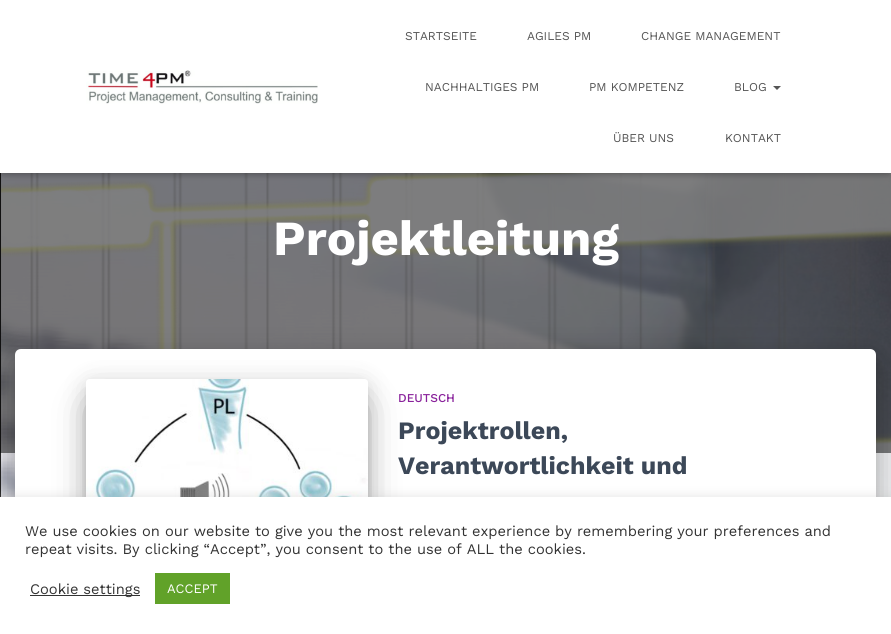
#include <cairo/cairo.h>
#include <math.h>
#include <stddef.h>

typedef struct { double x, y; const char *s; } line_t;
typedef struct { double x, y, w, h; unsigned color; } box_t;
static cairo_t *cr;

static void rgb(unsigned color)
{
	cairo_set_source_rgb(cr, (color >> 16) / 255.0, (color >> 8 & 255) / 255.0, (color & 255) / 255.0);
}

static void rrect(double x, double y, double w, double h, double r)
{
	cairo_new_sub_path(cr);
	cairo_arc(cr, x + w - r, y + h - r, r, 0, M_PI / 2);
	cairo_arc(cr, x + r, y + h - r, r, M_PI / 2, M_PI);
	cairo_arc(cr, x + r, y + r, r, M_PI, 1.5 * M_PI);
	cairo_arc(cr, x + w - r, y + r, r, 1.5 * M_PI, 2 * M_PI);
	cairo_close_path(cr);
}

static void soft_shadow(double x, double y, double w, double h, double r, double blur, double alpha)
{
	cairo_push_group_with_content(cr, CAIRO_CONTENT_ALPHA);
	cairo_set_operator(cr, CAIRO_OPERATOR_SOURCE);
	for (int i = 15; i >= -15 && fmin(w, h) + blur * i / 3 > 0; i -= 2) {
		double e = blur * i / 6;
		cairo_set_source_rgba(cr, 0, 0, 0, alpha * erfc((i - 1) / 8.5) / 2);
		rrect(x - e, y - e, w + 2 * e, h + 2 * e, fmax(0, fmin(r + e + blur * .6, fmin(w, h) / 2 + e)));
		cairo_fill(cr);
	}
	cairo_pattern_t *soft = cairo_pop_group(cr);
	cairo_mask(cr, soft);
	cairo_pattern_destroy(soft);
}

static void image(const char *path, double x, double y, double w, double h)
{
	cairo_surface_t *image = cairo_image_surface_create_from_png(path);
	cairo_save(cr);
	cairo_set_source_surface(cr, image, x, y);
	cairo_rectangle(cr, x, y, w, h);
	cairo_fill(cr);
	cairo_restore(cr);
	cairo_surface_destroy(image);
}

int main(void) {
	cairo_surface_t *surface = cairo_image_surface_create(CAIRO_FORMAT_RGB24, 891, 634);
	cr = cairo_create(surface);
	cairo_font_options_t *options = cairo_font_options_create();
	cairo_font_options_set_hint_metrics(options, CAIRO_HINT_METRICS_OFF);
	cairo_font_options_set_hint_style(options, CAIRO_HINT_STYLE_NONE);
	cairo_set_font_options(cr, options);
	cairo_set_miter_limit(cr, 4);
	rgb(0xffffff);
	cairo_paint(cr);
	image("img/1.png", 0, 173, 891, 324);
	cairo_set_source_rgba(cr, 0, 0, 0, 0.5);
	cairo_rectangle(cr, 0, 173, 891, 280);
	cairo_fill(cr);
	rgb(0x000000);
	soft_shadow(2, 6, 887, 169, 0, 2.5, 0.1);
	soft_shadow(0, 1, 891, 173, 0, 5, 0.12);
	soft_shadow(6, 7, 879, 161, 0, 5, 0.42);
	rgb(0xffffff);
	cairo_rectangle(cr, 0, 0, 891, 173);
	cairo_fill(cr);
	image("img/2.png", 86, 70, 232, 34);
	rgb(0x555555);
	cairo_new_path(cr);
	cairo_move_to(cr, 773, 86);
	cairo_line_to(cr, 781, 86);
	cairo_line_to(cr, 777, 90);
	cairo_close_path(cr);
	cairo_fill(cr);
	rgb(0x000000);
	soft_shadow(20, 362, 851, 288, 1, 5, 0.2);
	soft_shadow(10, 350, 871, 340, 11, 15, 0.12);
	soft_shadow(13, 363, 865, 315, 8, 12, 0.14);
	rgb(0xffffff);
	cairo_new_path(cr);
	cairo_move_to(cr, 21, 349);
	cairo_line_to(cr, 870, 349);
	cairo_curve_to(cr, 873.5, 349, 876, 351.5, 876, 355);
	cairo_line_to(cr, 876, 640);
	cairo_line_to(cr, 15, 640);
	cairo_line_to(cr, 15, 355);
	cairo_curve_to(cr, 15, 351.5, 17.5, 349, 21, 349);
	cairo_close_path(cr);
	cairo_fill(cr);
	rgb(0x000000);
	soft_shadow(91, 392, 272, 178, 0, 5, 0.2);
	soft_shadow(86, 383, 282, 188, 3, 12.5, 0.12);
	soft_shadow(98, 407, 258, 164, 0, 19, 0.56);
	image("img/3.png", 86, 379, 282, 118);
	rgb(0xacabab);
	soft_shadow(0, 496, 891, 137, 0, 5, 0.3);
	{
		static const box_t items[] = {
			{0, 497, 891, 137, 0xffffff},
			{30, 595, 110, 1, 0x333333},
			{155, 573, 75, 31, 0x61a229},
		};
		for (size_t i = 0; i < sizeof items / sizeof *items; i++) {
			rgb(items[i].color);
			cairo_rectangle(cr, items[i].x, items[i].y, items[i].w, items[i].h);
			cairo_fill(cr);
		}
	}
	cairo_select_font_face(cr, "Work Sans", CAIRO_FONT_SLANT_NORMAL, CAIRO_FONT_WEIGHT_NORMAL);
	cairo_set_font_size(cr, 12);
	rgb(0x555555);
	{
		static const line_t items[] = {
			{405, 40, "STARTSEITE"},
			{527, 40, "AGILES PM"},
			{641, 40, "CHANGE MANAGEMENT"},
			{425, 91, "NACHHALTIGES PM"},
			{589, 91, "PM KOMPETENZ"},
			{734, 91, "BLOG"},
			{613, 142, "ÜBER UNS"},
			{725, 142, "KONTAKT"},
		};
		for (size_t i = 0; i < sizeof items / sizeof *items; i++) {
			cairo_move_to(cr, items[i].x, items[i].y);
			cairo_show_text(cr, items[i].s);
		}
	}
	cairo_select_font_face(cr, "Work Sans", CAIRO_FONT_SLANT_NORMAL, CAIRO_FONT_WEIGHT_BOLD);
	cairo_set_font_size(cr, 49);
	rgb(0xffffff);
	cairo_move_to(cr, 273, 255);
	cairo_show_text(cr, "Projektleitung");
	cairo_select_font_face(cr, "Work Sans Medium", CAIRO_FONT_SLANT_NORMAL, CAIRO_FONT_WEIGHT_NORMAL);
	cairo_set_font_size(cr, 12);
	rgb(0x89229b);
	cairo_move_to(cr, 398, 402);
	cairo_show_text(cr, "DEUTSCH");
	cairo_select_font_face(cr, "Work Sans", CAIRO_FONT_SLANT_NORMAL, CAIRO_FONT_WEIGHT_BOLD);
	cairo_set_font_size(cr, 25);
	rgb(0x3c4858);
	cairo_move_to(cr, 398, 439);
	cairo_show_text(cr, "Projektrollen,");
	cairo_move_to(cr, 398, 474);
	cairo_show_text(cr, "Verantwortlichkeit und");
	cairo_select_font_face(cr, "Work Sans", CAIRO_FONT_SLANT_NORMAL, CAIRO_FONT_WEIGHT_NORMAL);
	cairo_set_font_size(cr, 14.67);
	rgb(0x333333);
	{
		static const line_t items[] = {
			{25, 536, "We use cookies on our website to give you the most relevant experience by remembering your preferences and"},
			{25, 554, "repeat visits. By clicking “Accept”, you consent to the use of ALL the cookies."},
			{30, 594, "Cookie settings"},
		};
		for (size_t i = 0; i < sizeof items / sizeof *items; i++) {
			cairo_move_to(cr, items[i].x, items[i].y);
			cairo_show_text(cr, items[i].s);
		}
	}
	cairo_set_font_size(cr, 13);
	rgb(0xffffff);
	cairo_move_to(cr, 167, 593);
	cairo_show_text(cr, "ACCEPT");
	cairo_surface_write_to_png(surface, "page.png");
	cairo_font_options_destroy(options);
	cairo_destroy(cr);
	cairo_surface_destroy(surface);
	return 0;
}
